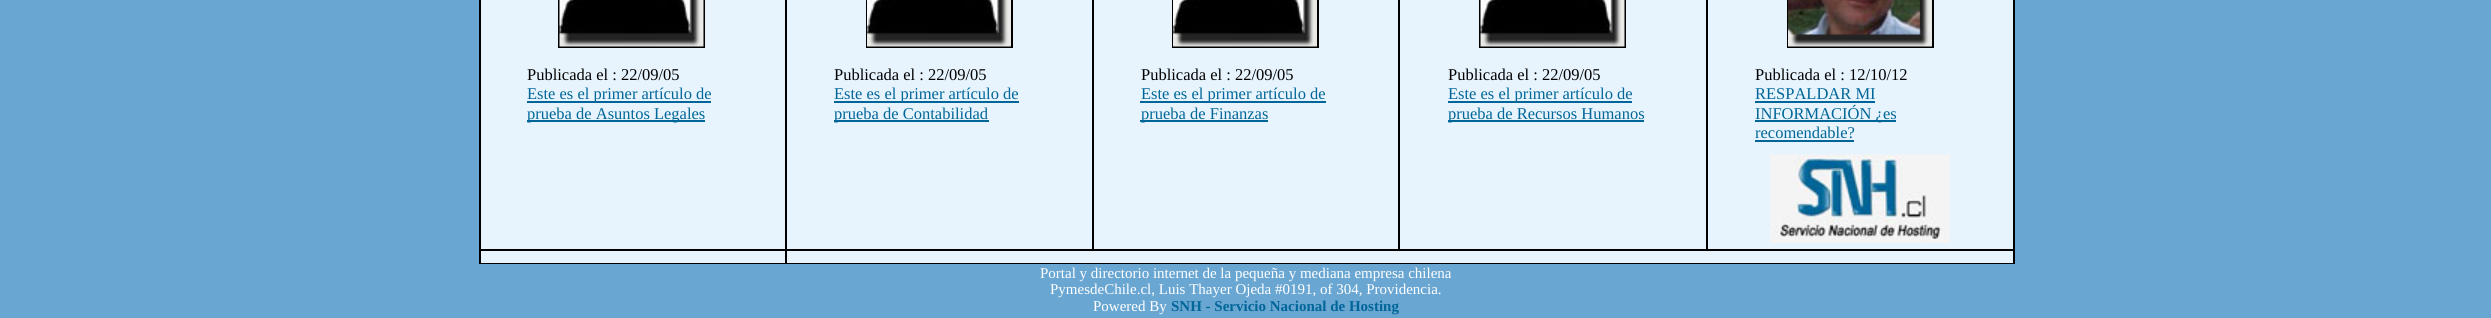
#include <cairo/cairo.h>
#include <math.h>
#include <stddef.h>

typedef struct { double x, y; const char *s; } line_t;
typedef struct { double x, y, w, h; unsigned color; } box_t;
static cairo_t *cr;

static void rgb(unsigned color)
{
	cairo_set_source_rgb(cr, (color >> 16) / 255.0, (color >> 8 & 255) / 255.0, (color & 255) / 255.0);
}

static void image(const char *path, double x, double y, double w, double h)
{
	cairo_surface_t *image = cairo_image_surface_create_from_png(path);
	cairo_save(cr);
	cairo_set_source_surface(cr, image, x, y);
	cairo_rectangle(cr, x, y, w, h);
	cairo_fill(cr);
	cairo_restore(cr);
	cairo_surface_destroy(image);
}

int main(void) {
	cairo_surface_t *surface = cairo_image_surface_create(CAIRO_FORMAT_RGB24, 2491, 318);
	cr = cairo_create(surface);
	cairo_font_options_t *options = cairo_font_options_create();
	cairo_font_options_set_hint_metrics(options, CAIRO_HINT_METRICS_OFF);
	cairo_font_options_set_hint_style(options, CAIRO_HINT_STYLE_NONE);
	cairo_set_font_options(cr, options);
	cairo_set_miter_limit(cr, 4);
	rgb(0x69a6d2);
	cairo_paint(cr);
	{
		static const box_t items[] = {
			{481, 0, 1532, 263, 0xe7f4fd},
			{2013, 0, 2, 264, 0x000000},
			{479, 263, 1536, 1, 0x000000},
			{479, 0, 2, 264, 0x000000},
		};
		for (size_t i = 0; i < sizeof items / sizeof *items; i++) {
			rgb(items[i].color);
			cairo_rectangle(cr, items[i].x, items[i].y, items[i].w, items[i].h);
			cairo_fill(cr);
		}
	}
	cairo_rectangle(cr, 559, -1, 145, 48);
	cairo_stroke(cr);
	image("img/1.png", 559, 0, 145, 47);
	{
		static const box_t items[] = {
			{527, 101, 184, 2, 0x006699},
			{527, 120, 178, 2, 0x006699},
			{1706, 249, 309, 2, 0x000000},
			{1706, 0, 2, 251, 0x000000},
			{1398, 249, 309, 2, 0x000000},
			{1398, 0, 2, 251, 0x000000},
			{1092, 249, 308, 2, 0x000000},
			{1092, 0, 2, 251, 0x000000},
			{479, 249, 307, 2, 0x000000},
			{785, 249, 2, 15, 0x000000},
			{785, 249, 309, 2, 0x000000},
			{785, 0, 2, 251, 0x000000},
		};
		for (size_t i = 0; i < sizeof items / sizeof *items; i++) {
			rgb(items[i].color);
			cairo_rectangle(cr, items[i].x, items[i].y, items[i].w, items[i].h);
			cairo_fill(cr);
		}
	}
	cairo_rectangle(cr, 867, -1, 145, 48);
	cairo_stroke(cr);
	image("img/2.png", 867, 0, 144, 47);
	rgb(0x006699);
	cairo_rectangle(cr, 834, 101, 185, 2);
	cairo_fill(cr);
	cairo_rectangle(cr, 834, 120, 155, 2);
	cairo_fill(cr);
	cairo_rectangle(cr, 1173, -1, 145, 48);
	rgb(0x000000);
	cairo_stroke(cr);
	image("img/3.png", 1173, 0, 144, 47);
	rgb(0x006699);
	cairo_rectangle(cr, 1140, 101, 186, 2);
	cairo_fill(cr);
	cairo_rectangle(cr, 1140, 120, 128, 2);
	cairo_fill(cr);
	cairo_rectangle(cr, 1480, -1, 145, 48);
	rgb(0x000000);
	cairo_stroke(cr);
	image("img/4.png", 1480, 0, 145, 47);
	rgb(0x006699);
	cairo_rectangle(cr, 1448, 101, 184, 2);
	cairo_fill(cr);
	cairo_rectangle(cr, 1448, 120, 196, 2);
	cairo_fill(cr);
	cairo_rectangle(cr, 1788, -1, 145, 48);
	rgb(0x000000);
	cairo_stroke(cr);
	image("img/5.png", 1788, 0, 144, 47);
	{
		static const box_t items[] = {
			{1755, 101, 120, 2, 0x006699},
			{1755, 120, 141, 2, 0x006699},
			{1755, 140, 99, 2, 0x006699},
		};
		for (size_t i = 0; i < sizeof items / sizeof *items; i++) {
			rgb(items[i].color);
			cairo_rectangle(cr, items[i].x, items[i].y, items[i].w, items[i].h);
			cairo_fill(cr);
		}
	}
	image("img/6.png", 1770, 154, 180, 89);
	cairo_select_font_face(cr, "Liberation Serif", CAIRO_FONT_SLANT_NORMAL, CAIRO_FONT_WEIGHT_NORMAL);
	cairo_set_font_size(cr, 16.5);
	rgb(0x000000);
	cairo_move_to(cr, 527, 80);
	cairo_show_text(cr, "Publicada el : 22/09/05");
	rgb(0x006699);
	cairo_move_to(cr, 527, 99);
	cairo_show_text(cr, "Este es el primer artículo de");
	cairo_move_to(cr, 527, 119);
	cairo_show_text(cr, "prueba de Asuntos Legales");
	rgb(0x000000);
	cairo_move_to(cr, 834, 80);
	cairo_show_text(cr, "Publicada el : 22/09/05");
	rgb(0x006699);
	cairo_move_to(cr, 834, 99);
	cairo_show_text(cr, "Este es el primer artículo de");
	cairo_move_to(cr, 834, 119);
	cairo_show_text(cr, "prueba de Contabilidad");
	rgb(0x000000);
	cairo_move_to(cr, 1141, 80);
	cairo_show_text(cr, "Publicada el : 22/09/05");
	rgb(0x006699);
	cairo_move_to(cr, 1141, 99);
	cairo_show_text(cr, "Este es el primer artículo de");
	cairo_move_to(cr, 1141, 119);
	cairo_show_text(cr, "prueba de Finanzas");
	rgb(0x000000);
	cairo_move_to(cr, 1448, 80);
	cairo_show_text(cr, "Publicada el : 22/09/05");
	rgb(0x006699);
	cairo_move_to(cr, 1448, 99);
	cairo_show_text(cr, "Este es el primer artículo de");
	cairo_move_to(cr, 1448, 119);
	cairo_show_text(cr, "prueba de Recursos Humanos");
	rgb(0x000000);
	cairo_move_to(cr, 1755, 80);
	cairo_show_text(cr, "Publicada el : 12/10/12");
	rgb(0x006699);
	{
		static const line_t items[] = {
			{1755, 99, "RESPALDAR MI"},
			{1755, 119, "INFORMACIÓN ¿es"},
			{1755, 138, "recomendable?"},
		};
		for (size_t i = 0; i < sizeof items / sizeof *items; i++) {
			cairo_move_to(cr, items[i].x, items[i].y);
			cairo_show_text(cr, items[i].s);
		}
	}
	cairo_set_font_size(cr, 15);
	rgb(0xffffff);
	{
		static const line_t items[] = {
			{1040, 278, "Portal y directorio internet de la pequeña y mediana empresa chilena"},
			{1050, 294, "PymesdeChile.cl, Luis Thayer Ojeda #0191, of 304, Providencia."},
			{1093, 311, "Powered By"},
		};
		for (size_t i = 0; i < sizeof items / sizeof *items; i++) {
			cairo_move_to(cr, items[i].x, items[i].y);
			cairo_show_text(cr, items[i].s);
		}
	}
	cairo_select_font_face(cr, "Liberation Serif", CAIRO_FONT_SLANT_NORMAL, CAIRO_FONT_WEIGHT_BOLD);
	rgb(0x006699);
	cairo_move_to(cr, 1171, 311);
	cairo_show_text(cr, "SNH - Servicio Nacional de Hosting");
	cairo_surface_write_to_png(surface, "page.png");
	cairo_font_options_destroy(options);
	cairo_destroy(cr);
	cairo_surface_destroy(surface);
	return 0;
}
